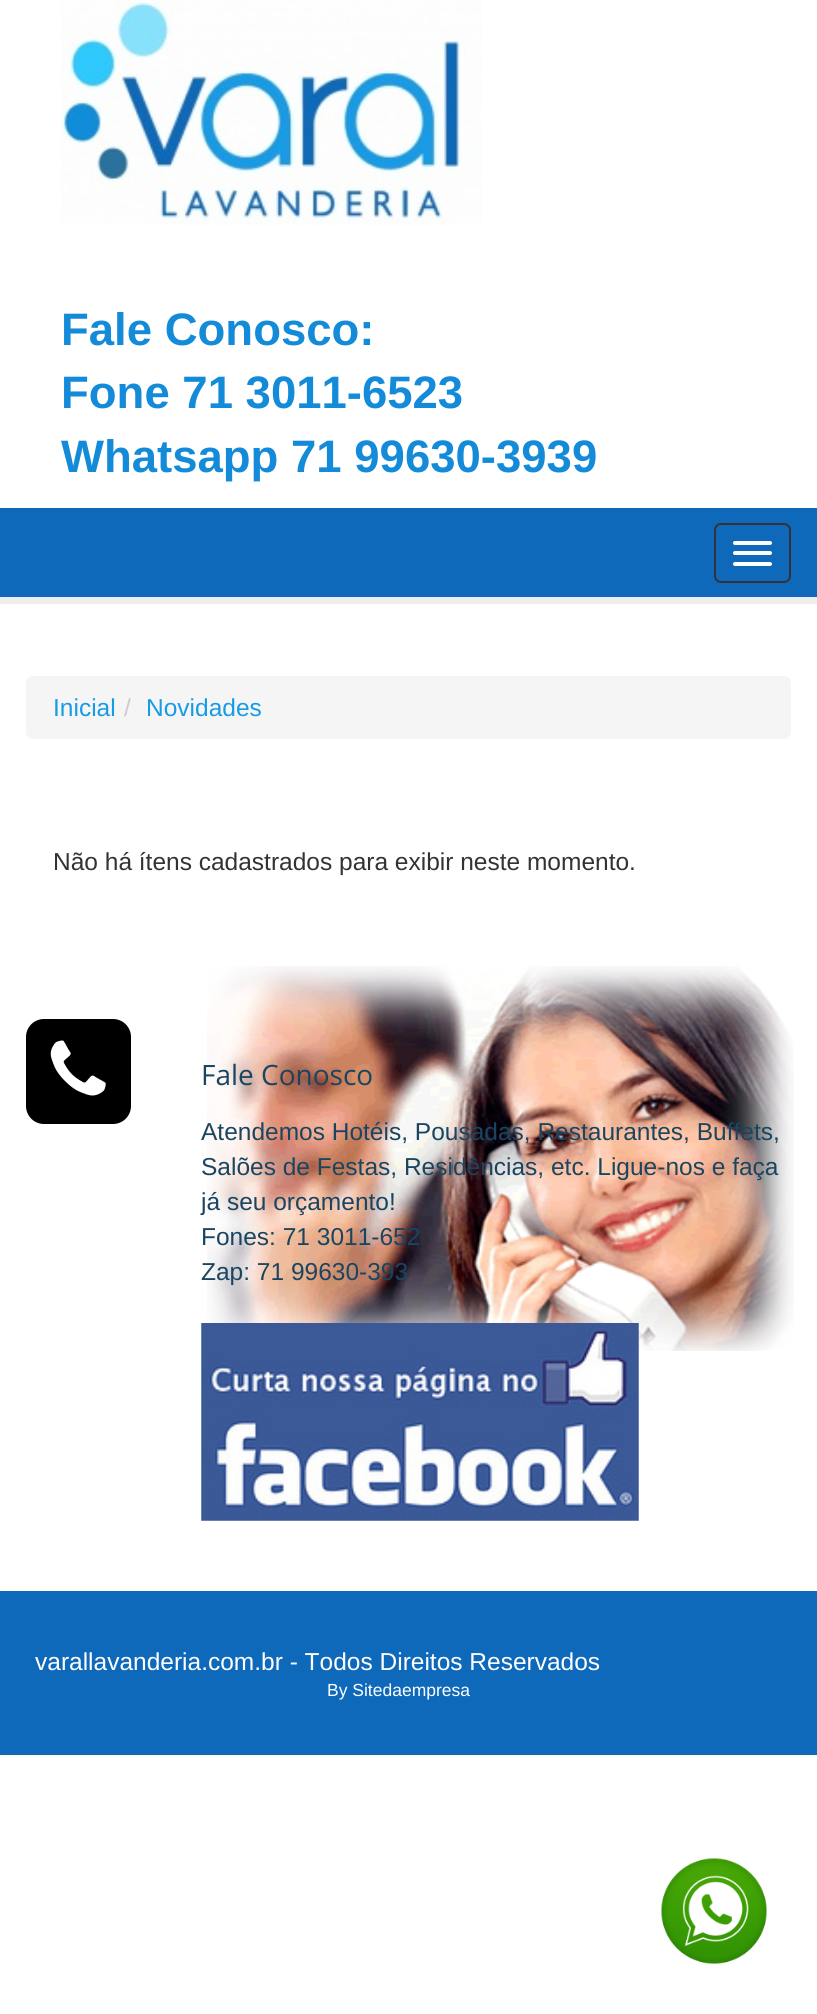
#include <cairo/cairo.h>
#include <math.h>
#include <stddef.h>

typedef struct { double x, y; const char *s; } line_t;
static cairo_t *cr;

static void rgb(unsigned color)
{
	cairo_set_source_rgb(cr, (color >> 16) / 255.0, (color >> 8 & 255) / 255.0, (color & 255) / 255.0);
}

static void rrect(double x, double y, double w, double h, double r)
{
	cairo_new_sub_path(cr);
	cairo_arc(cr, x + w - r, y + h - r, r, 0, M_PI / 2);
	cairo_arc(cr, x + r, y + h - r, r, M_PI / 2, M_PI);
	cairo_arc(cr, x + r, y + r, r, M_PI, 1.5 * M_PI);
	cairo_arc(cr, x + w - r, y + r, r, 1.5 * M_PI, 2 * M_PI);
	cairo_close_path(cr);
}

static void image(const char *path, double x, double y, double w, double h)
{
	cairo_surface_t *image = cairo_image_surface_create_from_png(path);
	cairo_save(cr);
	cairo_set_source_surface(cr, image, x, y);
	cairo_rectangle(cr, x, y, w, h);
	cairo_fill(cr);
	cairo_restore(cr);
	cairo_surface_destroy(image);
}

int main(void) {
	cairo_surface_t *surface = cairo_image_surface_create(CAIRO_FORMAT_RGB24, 817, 2014);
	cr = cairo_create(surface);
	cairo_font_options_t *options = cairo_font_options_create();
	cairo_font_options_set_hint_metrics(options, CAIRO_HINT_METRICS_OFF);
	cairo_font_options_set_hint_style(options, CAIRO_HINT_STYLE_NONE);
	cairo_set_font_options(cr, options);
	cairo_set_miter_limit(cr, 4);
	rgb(0xffffff);
	cairo_paint(cr);
	image("img/1.png", 61, 0, 421, 225);
	rgb(0x0f69bb);
	cairo_rectangle(cr, 0, 508, 817, 89);
	cairo_fill(cr);
	rrect(715, 524, 75, 58, 6);
	rgb(0x333333);
	cairo_stroke(cr);
	rgb(0xffffff);
	rrect(733, 541, 39, 4, 2);
	cairo_fill(cr);
	rrect(733, 551, 39, 4, 2);
	cairo_fill(cr);
	rrect(733, 562, 39, 4, 2);
	cairo_fill(cr);
	rgb(0xeeeeee);
	cairo_rectangle(cr, 0, 597, 817, 7);
	cairo_fill(cr);
	rgb(0xf5f5f5);
	rrect(26, 676, 765, 63, 7);
	cairo_fill(cr);
	image("img/2.png", 207, 966, 587, 385);
	rgb(0x000000);
	rrect(26, 1019, 105, 105, 18);
	cairo_fill(cr);
	image("img/3.png", 50, 1040, 56, 56);
	image("img/4.png", 201, 1323, 438, 198);
	rgb(0x0f69bb);
	cairo_rectangle(cr, 0, 1591, 817, 164);
	cairo_fill(cr);
	image("img/5.png", 661, 1858, 106, 106);
	cairo_select_font_face(cr, "Liberation Sans", CAIRO_FONT_SLANT_NORMAL, CAIRO_FONT_WEIGHT_BOLD);
	cairo_set_font_size(cr, 45.5);
	rgb(0x138bd9);
	{
		static const line_t items[] = {
			{61, 345, "Fale Conosco:"},
			{61, 408, "Fone 71 3011-6523"},
			{61, 472, "Whatsapp 71 99630-3939"},
		};
		for (size_t i = 0; i < sizeof items / sizeof *items; i++) {
			cairo_move_to(cr, items[i].x, items[i].y);
			cairo_show_text(cr, items[i].s);
		}
	}
	cairo_select_font_face(cr, "Liberation Sans", CAIRO_FONT_SLANT_NORMAL, CAIRO_FONT_WEIGHT_NORMAL);
	cairo_set_font_size(cr, 24.5);
	rgb(0x189be5);
	cairo_move_to(cr, 53, 716);
	cairo_show_text(cr, "Inicial");
	rgb(0xcccccc);
	cairo_move_to(cr, 124, 716);
	cairo_show_text(cr, "/");
	rgb(0x189be5);
	cairo_move_to(cr, 146, 716);
	cairo_show_text(cr, "Novidades");
	rgb(0x333333);
	cairo_move_to(cr, 53, 870);
	cairo_show_text(cr, "Não há ítens cadastrados para exibir neste momento.");
	cairo_select_font_face(cr, "Open Sans", CAIRO_FONT_SLANT_NORMAL, CAIRO_FONT_WEIGHT_NORMAL);
	cairo_set_font_size(cr, 28);
	rgb(0x1a4560);
	cairo_move_to(cr, 201, 1085);
	cairo_show_text(cr, "Fale Conosco");
	cairo_select_font_face(cr, "Liberation Sans", CAIRO_FONT_SLANT_NORMAL, CAIRO_FONT_WEIGHT_NORMAL);
	cairo_set_font_size(cr, 24.5);
	{
		static const line_t items[] = {
			{201, 1140, "Atendemos Hotéis, Pousadas, Restaurantes, Buffets,"},
			{201, 1175, "Salões de Festas, Residências, etc. Ligue-nos e faça"},
			{201, 1210, "já seu orçamento!"},
			{201, 1245, "Fones: 71 3011-652"},
			{201, 1280, "Zap: 71 99630-393"},
		};
		for (size_t i = 0; i < sizeof items / sizeof *items; i++) {
			cairo_move_to(cr, items[i].x, items[i].y);
			cairo_show_text(cr, items[i].s);
		}
	}
	rgb(0xffffff);
	cairo_move_to(cr, 35, 1670);
	cairo_show_text(cr, "varallavanderia.com.br - Todos Direitos Reservados");
	cairo_set_font_size(cr, 17.5);
	cairo_move_to(cr, 327, 1696);
	cairo_show_text(cr, "By Sitedaempresa");
	cairo_surface_write_to_png(surface, "page.png");
	cairo_font_options_destroy(options);
	cairo_destroy(cr);
	cairo_surface_destroy(surface);
	return 0;
}
